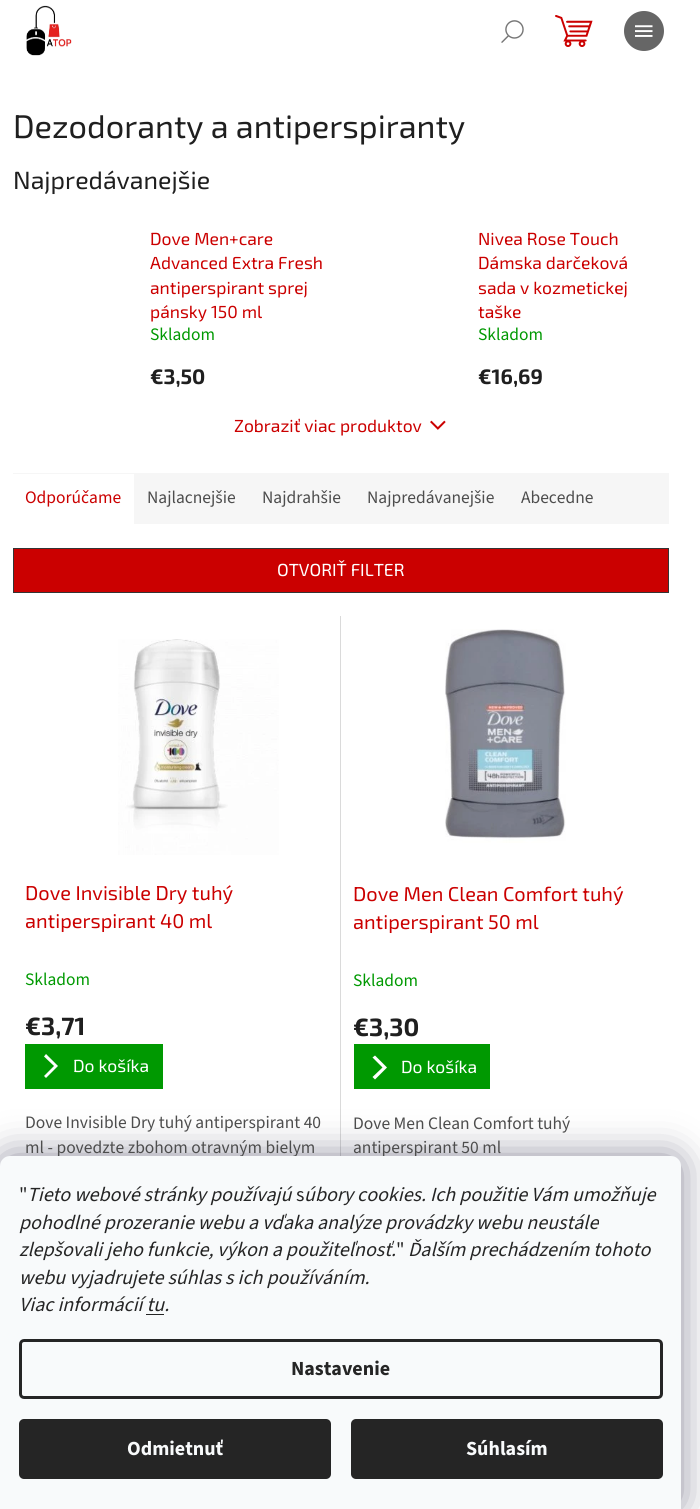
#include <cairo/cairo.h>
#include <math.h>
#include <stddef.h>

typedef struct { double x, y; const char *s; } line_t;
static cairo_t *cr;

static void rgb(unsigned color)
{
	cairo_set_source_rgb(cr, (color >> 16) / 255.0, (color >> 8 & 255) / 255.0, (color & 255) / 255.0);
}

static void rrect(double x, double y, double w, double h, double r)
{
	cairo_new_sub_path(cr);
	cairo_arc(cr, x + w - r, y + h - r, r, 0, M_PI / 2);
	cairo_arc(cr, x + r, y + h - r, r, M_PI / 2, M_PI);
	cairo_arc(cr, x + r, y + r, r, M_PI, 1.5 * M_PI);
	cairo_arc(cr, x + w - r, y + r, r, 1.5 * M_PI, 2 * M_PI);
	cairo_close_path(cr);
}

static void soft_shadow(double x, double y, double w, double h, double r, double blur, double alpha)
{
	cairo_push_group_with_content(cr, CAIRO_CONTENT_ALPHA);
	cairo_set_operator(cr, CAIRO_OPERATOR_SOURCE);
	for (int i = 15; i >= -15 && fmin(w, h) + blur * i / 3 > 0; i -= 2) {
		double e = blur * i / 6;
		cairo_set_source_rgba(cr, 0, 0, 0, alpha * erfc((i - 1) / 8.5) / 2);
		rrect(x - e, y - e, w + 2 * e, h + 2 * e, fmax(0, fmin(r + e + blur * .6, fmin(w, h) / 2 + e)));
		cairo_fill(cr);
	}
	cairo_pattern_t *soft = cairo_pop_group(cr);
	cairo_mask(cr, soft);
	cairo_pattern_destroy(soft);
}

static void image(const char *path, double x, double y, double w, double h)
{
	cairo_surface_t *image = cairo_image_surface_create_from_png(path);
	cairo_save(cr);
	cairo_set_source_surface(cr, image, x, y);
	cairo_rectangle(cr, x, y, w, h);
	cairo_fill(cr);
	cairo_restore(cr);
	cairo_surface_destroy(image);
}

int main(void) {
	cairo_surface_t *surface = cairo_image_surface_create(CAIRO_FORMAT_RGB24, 700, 1509);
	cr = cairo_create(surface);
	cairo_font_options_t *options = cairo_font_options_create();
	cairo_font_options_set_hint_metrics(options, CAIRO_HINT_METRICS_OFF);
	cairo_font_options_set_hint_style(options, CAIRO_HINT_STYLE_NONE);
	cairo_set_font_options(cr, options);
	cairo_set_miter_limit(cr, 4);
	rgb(0xffffff);
	cairo_paint(cr);
	image("img/1.png", 26, 5, 46, 51);
	image("img/2.png", 555, 15, 38, 32);
	image("img/3.png", 501, 20, 23, 23);
	rgb(0x666666);
	cairo_arc(cr, 644, 31, 20, 0, 2 * M_PI);
	cairo_fill(cr);
	image("img/4.png", 635, 25, 18, 12);
	image("img/5.png", 430, 420, 16, 10);
	rgb(0xf6f6f6);
	cairo_rectangle(cr, 13, 473, 656, 51);
	cairo_fill(cr);
	rgb(0xffffff);
	cairo_rectangle(cr, 13, 474, 121, 50);
	cairo_fill(cr);
	rgb(0xcb0000);
	cairo_rectangle(cr, 13.5, 548.5, 655, 44);
	cairo_fill_preserve(cr);
	rgb(0x343434);
	cairo_set_line_width(cr, 1);
	cairo_stroke(cr);
	rgb(0xdadada);
	cairo_rectangle(cr, 340, 616, 1, 540);
	cairo_fill(cr);
	image("img/6.png", 118, 639, 161, 216);
	rgb(0x009901);
	cairo_rectangle(cr, 25, 1044, 138, 45);
	cairo_fill(cr);
	rgb(0xffffff);
	cairo_new_path(cr);
	cairo_move_to(cr, 46, 1078);
	cairo_line_to(cr, 44, 1076);
	cairo_line_to(cr, 54, 1066);
	cairo_line_to(cr, 44, 1056.5);
	cairo_line_to(cr, 46, 1054);
	cairo_line_to(cr, 58, 1066);
	cairo_close_path(cr);
	cairo_fill(cr);
	image("img/7.png", 445, 629, 121, 214);
	rgb(0x009901);
	cairo_rectangle(cr, 354, 1044, 136, 45);
	cairo_fill(cr);
	rgb(0xffffff);
	cairo_new_path(cr);
	cairo_move_to(cr, 375, 1079.5);
	cairo_line_to(cr, 372.5, 1077);
	cairo_line_to(cr, 382.5, 1067.5);
	cairo_line_to(cr, 372.5, 1057.5);
	cairo_line_to(cr, 375, 1055.5);
	cairo_line_to(cr, 387, 1067.5);
	cairo_close_path(cr);
	cairo_fill(cr);
	rgb(0x1b1939);
	soft_shadow(0, 1156, 681, 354, 10, 19, 0.5);
	cairo_select_font_face(cr, "Exo 2", CAIRO_FONT_SLANT_NORMAL, CAIRO_FONT_WEIGHT_NORMAL);
	cairo_set_font_size(cr, 32.5);
	rgb(0x1f1f1f);
	cairo_move_to(cr, 13, 138);
	cairo_show_text(cr, "Dezodoranty a antiperspiranty");
	cairo_set_font_size(cr, 25);
	cairo_move_to(cr, 13, 189);
	cairo_show_text(cr, "Najpredávanejšie");
	cairo_set_font_size(cr, 17.5);
	rgb(0xcb0000);
	{
		static const line_t items[] = {
			{150, 245, "Dove Men+care"},
			{150, 269, "Advanced Extra Fresh"},
			{150, 294, "antiperspirant sprej"},
			{150, 318, "pánsky 150 ml"},
		};
		for (size_t i = 0; i < sizeof items / sizeof *items; i++) {
			cairo_move_to(cr, items[i].x, items[i].y);
			cairo_show_text(cr, items[i].s);
		}
	}
	cairo_select_font_face(cr, "Source Sans 3", CAIRO_FONT_SLANT_NORMAL, CAIRO_FONT_WEIGHT_NORMAL);
	rgb(0x009901);
	cairo_move_to(cr, 150, 340);
	cairo_show_text(cr, "Skladom");
	cairo_select_font_face(cr, "Exo 2", CAIRO_FONT_SLANT_NORMAL, CAIRO_FONT_WEIGHT_BOLD);
	cairo_set_font_size(cr, 21);
	rgb(0x1f1f1f);
	cairo_move_to(cr, 150, 384);
	cairo_show_text(cr, "€3,50");
	cairo_select_font_face(cr, "Exo 2", CAIRO_FONT_SLANT_NORMAL, CAIRO_FONT_WEIGHT_NORMAL);
	cairo_set_font_size(cr, 17.5);
	rgb(0xcb0000);
	{
		static const line_t items[] = {
			{478, 245, "Nivea Rose Touch"},
			{478, 269, "Dámska darčeková"},
			{478, 294, "sada v kozmetickej"},
			{478, 318, "taške"},
		};
		for (size_t i = 0; i < sizeof items / sizeof *items; i++) {
			cairo_move_to(cr, items[i].x, items[i].y);
			cairo_show_text(cr, items[i].s);
		}
	}
	cairo_select_font_face(cr, "Source Sans 3", CAIRO_FONT_SLANT_NORMAL, CAIRO_FONT_WEIGHT_NORMAL);
	rgb(0x009901);
	cairo_move_to(cr, 478, 340);
	cairo_show_text(cr, "Skladom");
	cairo_select_font_face(cr, "Exo 2", CAIRO_FONT_SLANT_NORMAL, CAIRO_FONT_WEIGHT_BOLD);
	cairo_set_font_size(cr, 21);
	rgb(0x1f1f1f);
	cairo_move_to(cr, 478, 384);
	cairo_show_text(cr, "€16,69");
	cairo_select_font_face(cr, "Exo 2", CAIRO_FONT_SLANT_NORMAL, CAIRO_FONT_WEIGHT_NORMAL);
	cairo_set_font_size(cr, 17.5);
	rgb(0xcb0000);
	cairo_move_to(cr, 234, 432);
	cairo_show_text(cr, "Zobraziť viac produktov");
	cairo_select_font_face(cr, "Source Sans 3", CAIRO_FONT_SLANT_NORMAL, CAIRO_FONT_WEIGHT_NORMAL);
	cairo_move_to(cr, 25, 503);
	cairo_show_text(cr, "Odporúčame");
	rgb(0x4d4d4d);
	{
		static const line_t items[] = {
			{147, 503, "Najlacnejšie"},
			{262, 503, "Najdrahšie"},
			{367, 503, "Najpredávanejšie"},
			{521, 503, "Abecedne"},
		};
		for (size_t i = 0; i < sizeof items / sizeof *items; i++) {
			cairo_move_to(cr, items[i].x, items[i].y);
			cairo_show_text(cr, items[i].s);
		}
	}
	cairo_select_font_face(cr, "Exo 2", CAIRO_FONT_SLANT_NORMAL, CAIRO_FONT_WEIGHT_NORMAL);
	rgb(0xffffff);
	cairo_move_to(cr, 277, 576);
	cairo_show_text(cr, "OTVORIŤ FILTER");
	cairo_set_font_size(cr, 20);
	rgb(0xcb0000);
	cairo_move_to(cr, 25, 900);
	cairo_show_text(cr, "Dove Invisible Dry tuhý");
	cairo_move_to(cr, 25, 928);
	cairo_show_text(cr, "antiperspirant 40 ml");
	cairo_select_font_face(cr, "Source Sans 3", CAIRO_FONT_SLANT_NORMAL, CAIRO_FONT_WEIGHT_NORMAL);
	cairo_set_font_size(cr, 17.5);
	rgb(0x009901);
	cairo_move_to(cr, 25, 985);
	cairo_show_text(cr, "Skladom");
	cairo_select_font_face(cr, "Exo 2", CAIRO_FONT_SLANT_NORMAL, CAIRO_FONT_WEIGHT_BOLD);
	cairo_set_font_size(cr, 25);
	rgb(0x1f1f1f);
	cairo_move_to(cr, 25, 1035);
	cairo_show_text(cr, "€3,71");
	cairo_select_font_face(cr, "Exo 2", CAIRO_FONT_SLANT_NORMAL, CAIRO_FONT_WEIGHT_NORMAL);
	cairo_set_font_size(cr, 17.5);
	rgb(0xffffff);
	cairo_move_to(cr, 73, 1072);
	cairo_show_text(cr, "Do košíka");
	cairo_select_font_face(cr, "Source Sans 3", CAIRO_FONT_SLANT_NORMAL, CAIRO_FONT_WEIGHT_NORMAL);
	rgb(0x4d4d4d);
	cairo_move_to(cr, 25, 1128);
	cairo_show_text(cr, "Dove Invisible Dry tuhý antiperspirant 40");
	cairo_move_to(cr, 25, 1153);
	cairo_show_text(cr, "ml - povedzte zbohom otravným bielym");
	cairo_select_font_face(cr, "Exo 2", CAIRO_FONT_SLANT_NORMAL, CAIRO_FONT_WEIGHT_NORMAL);
	cairo_set_font_size(cr, 20);
	rgb(0xcb0000);
	cairo_move_to(cr, 353, 901);
	cairo_show_text(cr, "Dove Men Clean Comfort tuhý");
	cairo_move_to(cr, 353, 929);
	cairo_show_text(cr, "antiperspirant 50 ml");
	cairo_select_font_face(cr, "Source Sans 3", CAIRO_FONT_SLANT_NORMAL, CAIRO_FONT_WEIGHT_NORMAL);
	cairo_set_font_size(cr, 17.5);
	rgb(0x009901);
	cairo_move_to(cr, 353, 986);
	cairo_show_text(cr, "Skladom");
	cairo_select_font_face(cr, "Exo 2", CAIRO_FONT_SLANT_NORMAL, CAIRO_FONT_WEIGHT_BOLD);
	cairo_set_font_size(cr, 25);
	rgb(0x1f1f1f);
	cairo_move_to(cr, 353, 1036);
	cairo_show_text(cr, "€3,30");
	cairo_select_font_face(cr, "Exo 2", CAIRO_FONT_SLANT_NORMAL, CAIRO_FONT_WEIGHT_NORMAL);
	cairo_set_font_size(cr, 17.5);
	rgb(0xffffff);
	cairo_move_to(cr, 401, 1073);
	cairo_show_text(cr, "Do košíka");
	cairo_select_font_face(cr, "Source Sans 3", CAIRO_FONT_SLANT_NORMAL, CAIRO_FONT_WEIGHT_NORMAL);
	rgb(0x4d4d4d);
	cairo_move_to(cr, 353, 1129);
	cairo_show_text(cr, "Dove Men Clean Comfort tuhý");
	cairo_move_to(cr, 353, 1153);
	cairo_show_text(cr, "antiperspirant 50 ml");
	rgb(0xf8fafb);
	cairo_new_path(cr);
	cairo_move_to(cr, 10, 1156);
	cairo_line_to(cr, 671, 1156);
	cairo_curve_to(cr, 676.5, 1156, 681, 1160.5, 681, 1166);
	cairo_line_to(cr, 681, 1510);
	cairo_line_to(cr, 0, 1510);
	cairo_line_to(cr, 0, 1166);
	cairo_curve_to(cr, 0, 1160.5, 4.5, 1156, 10, 1156);
	cairo_close_path(cr);
	cairo_fill(cr);
	cairo_set_font_size(cr, 20);
	rgb(0x252525);
	cairo_move_to(cr, 19, 1201);
	cairo_show_text(cr, "\"");
	cairo_select_font_face(cr, "Source Sans 3", CAIRO_FONT_SLANT_ITALIC, CAIRO_FONT_WEIGHT_NORMAL);
	cairo_move_to(cr, 27, 1201);
	cairo_show_text(cr, "Tieto webové stránky používajú");
	cairo_move_to(cr, 304, 1201);
	cairo_show_text(cr, "úbory cookies. Ich použitie Vám umožňuje");
	cairo_select_font_face(cr, "Source Sans 3", CAIRO_FONT_SLANT_NORMAL, CAIRO_FONT_WEIGHT_NORMAL);
	cairo_move_to(cr, 296, 1201);
	cairo_show_text(cr, "s");
	cairo_select_font_face(cr, "Source Sans 3", CAIRO_FONT_SLANT_ITALIC, CAIRO_FONT_WEIGHT_NORMAL);
	cairo_move_to(cr, 19, 1229);
	cairo_show_text(cr, "pohodlné prozeranie webu a vďaka analýze provádzky webu neustále");
	cairo_move_to(cr, 19, 1256);
	cairo_show_text(cr, "zlepšovali jeho funkcie, výkon a použiteľnosť.");
	cairo_select_font_face(cr, "Source Sans 3", CAIRO_FONT_SLANT_NORMAL, CAIRO_FONT_WEIGHT_NORMAL);
	cairo_move_to(cr, 396, 1256);
	cairo_show_text(cr, "\"");
	cairo_select_font_face(cr, "Source Sans 3", CAIRO_FONT_SLANT_ITALIC, CAIRO_FONT_WEIGHT_NORMAL);
	{
		static const line_t items[] = {
			{408, 1256, "Ďalším prechádzením tohoto"},
			{19, 1284, "webu vyjadrujete súhlas s ich používáním."},
			{19, 1311, "Viac informácií tu."},
		};
		for (size_t i = 0; i < sizeof items / sizeof *items; i++) {
			cairo_move_to(cr, items[i].x, items[i].y);
			cairo_show_text(cr, items[i].s);
		}
	}
	cairo_rectangle(cr, 146, 1314, 18, 1);
	cairo_fill(cr);
	rrect(20.5, 1340.5, 641, 57, 3.5);
	cairo_set_line_width(cr, 3);
	cairo_stroke(cr);
	cairo_select_font_face(cr, "Source Sans 3", CAIRO_FONT_SLANT_NORMAL, CAIRO_FONT_WEIGHT_BOLD);
	cairo_move_to(cr, 291, 1375);
	cairo_show_text(cr, "Nastavenie");
	rrect(19, 1419, 312, 60, 5);
	cairo_fill(cr);
	rgb(0xf8fafb);
	cairo_move_to(cr, 127, 1455);
	cairo_show_text(cr, "Odmietnuť");
	rgb(0x252525);
	rrect(351, 1419, 312, 60, 5);
	cairo_fill(cr);
	rgb(0xf8fafb);
	cairo_move_to(cr, 466, 1455);
	cairo_show_text(cr, "Súhlasím");
	cairo_surface_write_to_png(surface, "page.png");
	cairo_font_options_destroy(options);
	cairo_destroy(cr);
	cairo_surface_destroy(surface);
	return 0;
}
